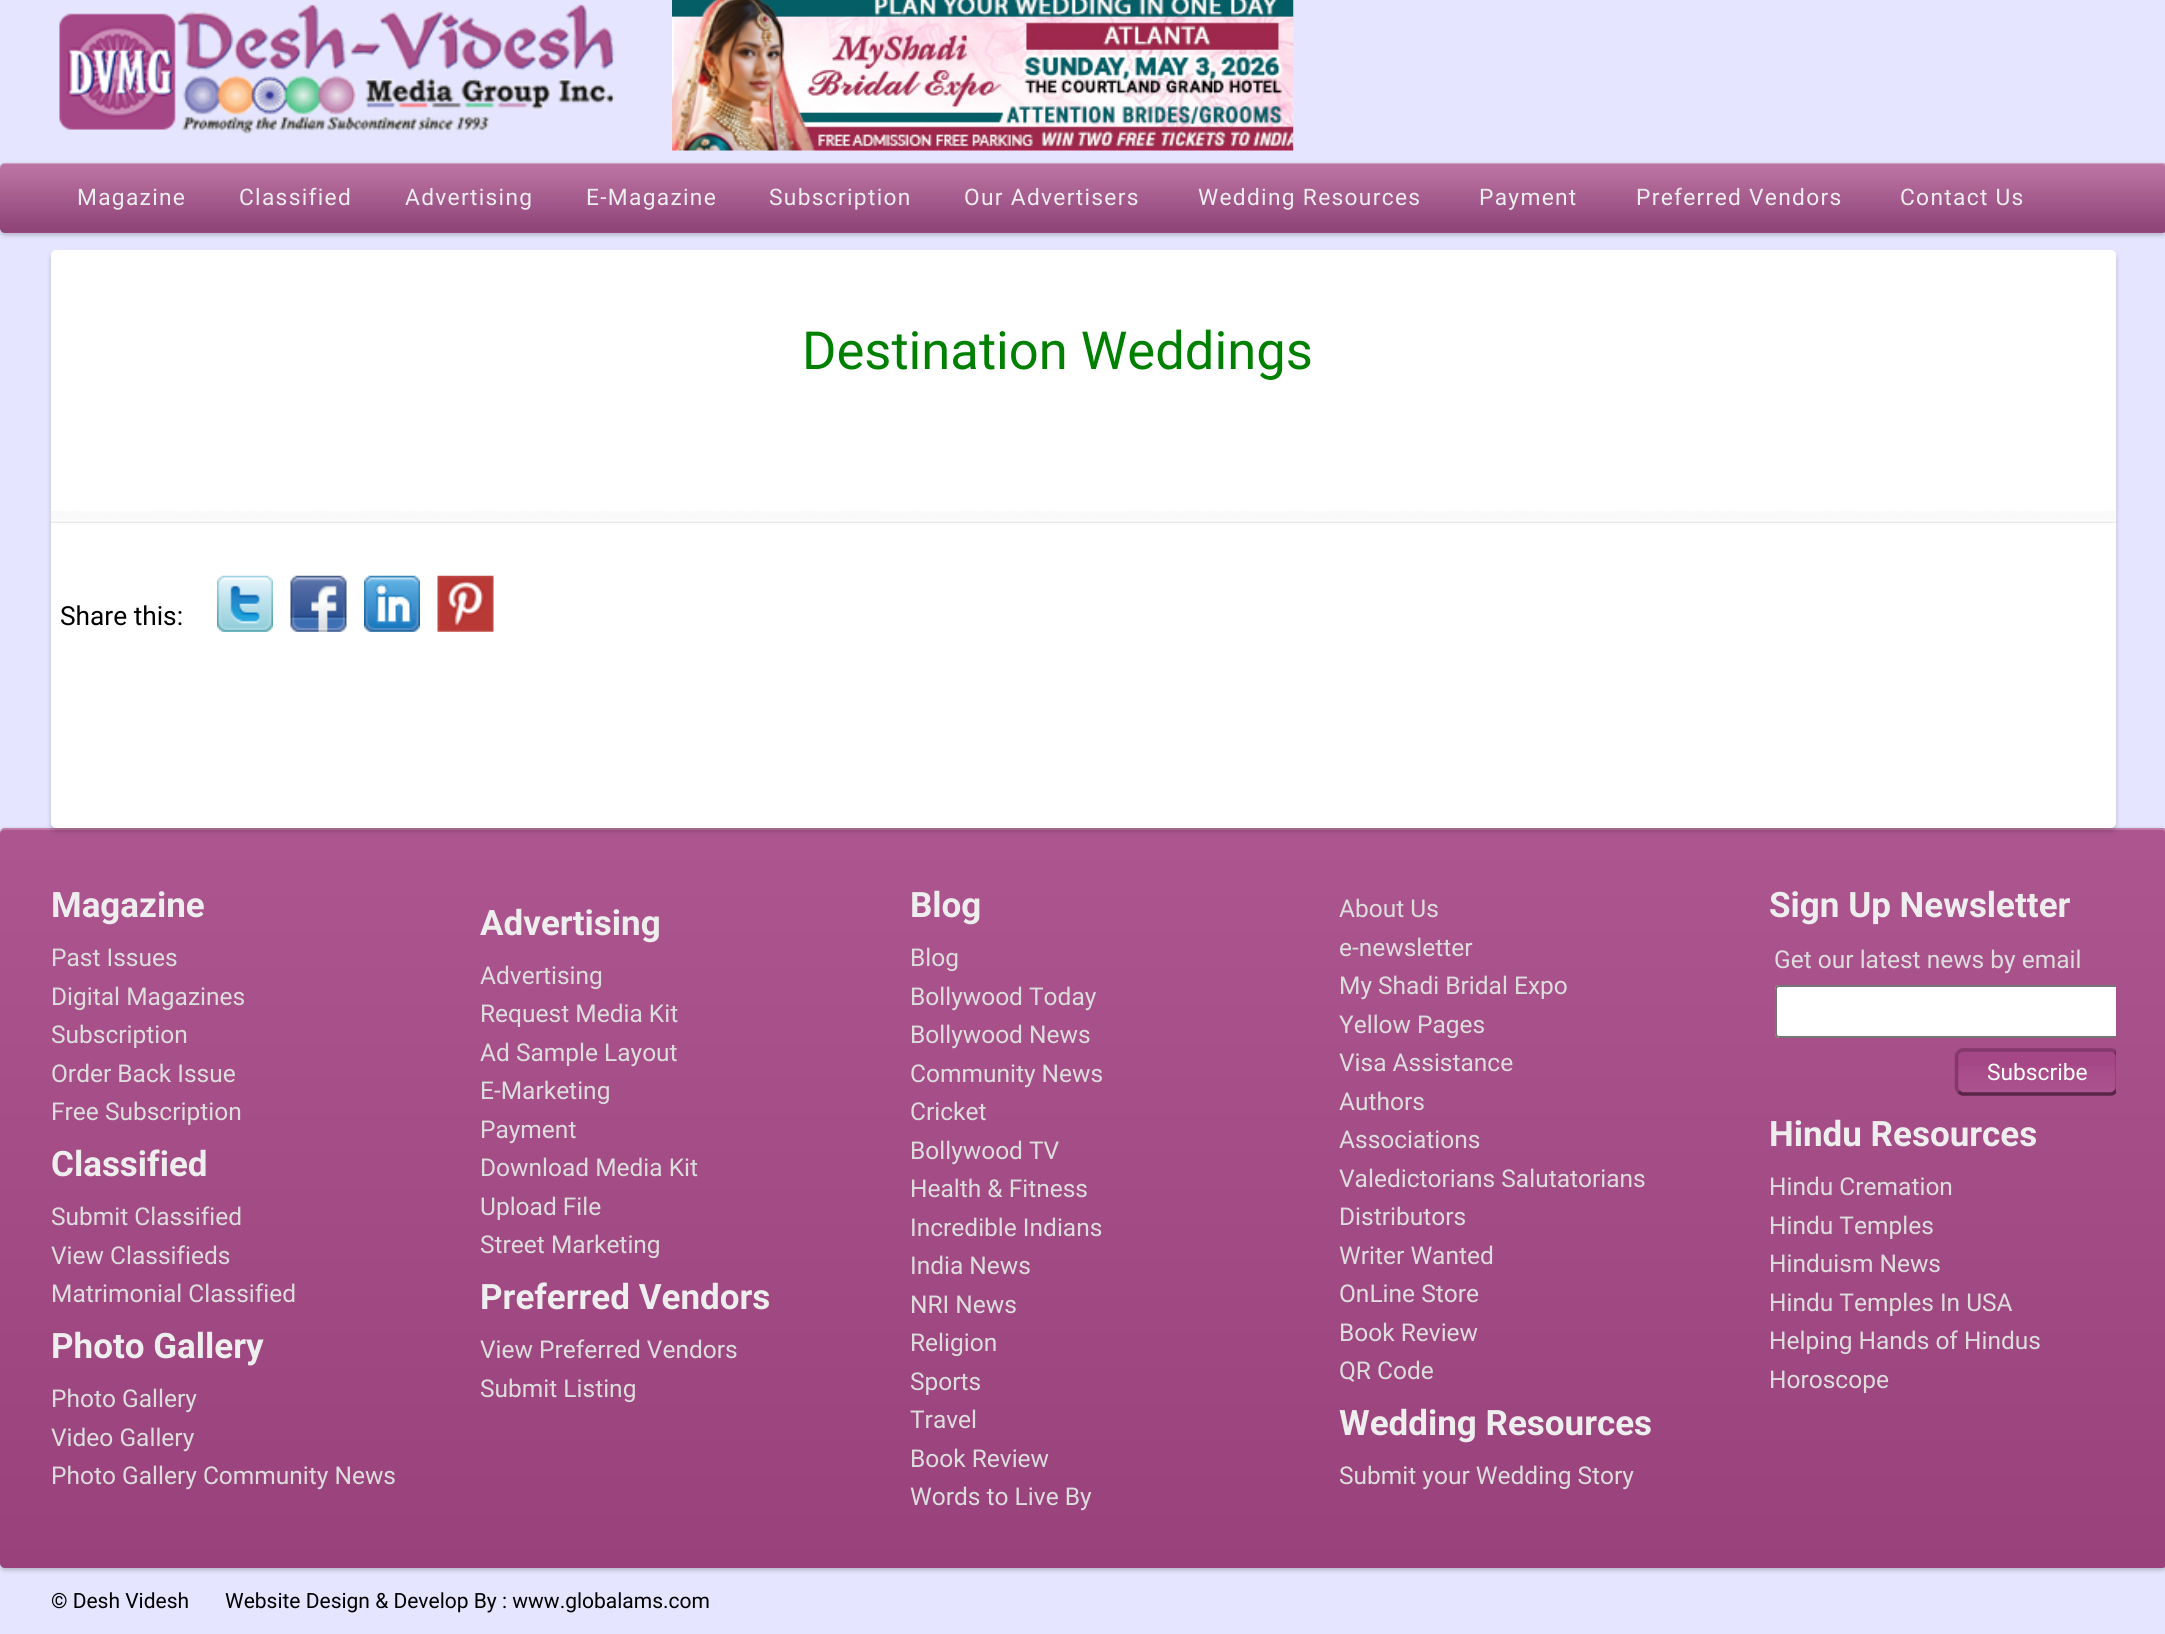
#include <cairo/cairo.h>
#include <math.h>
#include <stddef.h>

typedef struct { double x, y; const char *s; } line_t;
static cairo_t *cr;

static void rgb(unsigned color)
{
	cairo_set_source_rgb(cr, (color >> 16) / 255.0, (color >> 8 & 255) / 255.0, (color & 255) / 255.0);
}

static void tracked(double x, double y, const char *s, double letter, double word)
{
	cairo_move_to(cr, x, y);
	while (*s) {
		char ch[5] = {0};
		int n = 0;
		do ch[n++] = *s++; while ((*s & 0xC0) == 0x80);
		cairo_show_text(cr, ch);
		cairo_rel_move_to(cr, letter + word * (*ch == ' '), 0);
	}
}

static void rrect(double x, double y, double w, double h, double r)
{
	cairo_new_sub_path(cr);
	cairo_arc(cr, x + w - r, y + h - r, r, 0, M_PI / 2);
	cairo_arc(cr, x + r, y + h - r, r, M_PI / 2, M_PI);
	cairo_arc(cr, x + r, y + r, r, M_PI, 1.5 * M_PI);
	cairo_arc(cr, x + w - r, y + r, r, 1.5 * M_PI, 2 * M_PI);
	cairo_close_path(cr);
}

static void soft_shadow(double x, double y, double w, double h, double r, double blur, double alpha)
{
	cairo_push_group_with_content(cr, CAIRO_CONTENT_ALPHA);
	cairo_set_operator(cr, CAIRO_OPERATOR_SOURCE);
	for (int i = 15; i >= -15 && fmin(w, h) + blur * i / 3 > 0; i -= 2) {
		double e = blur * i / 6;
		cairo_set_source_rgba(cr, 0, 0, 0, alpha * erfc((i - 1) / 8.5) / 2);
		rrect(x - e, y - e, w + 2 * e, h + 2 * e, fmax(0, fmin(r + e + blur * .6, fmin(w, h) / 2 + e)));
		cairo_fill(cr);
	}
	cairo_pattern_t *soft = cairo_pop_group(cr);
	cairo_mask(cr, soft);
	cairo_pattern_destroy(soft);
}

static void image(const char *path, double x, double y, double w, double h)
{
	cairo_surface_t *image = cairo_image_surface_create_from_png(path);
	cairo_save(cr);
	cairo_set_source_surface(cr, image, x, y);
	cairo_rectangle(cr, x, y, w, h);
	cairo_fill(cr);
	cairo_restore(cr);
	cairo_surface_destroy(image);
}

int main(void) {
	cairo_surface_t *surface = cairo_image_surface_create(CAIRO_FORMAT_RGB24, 2165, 1634);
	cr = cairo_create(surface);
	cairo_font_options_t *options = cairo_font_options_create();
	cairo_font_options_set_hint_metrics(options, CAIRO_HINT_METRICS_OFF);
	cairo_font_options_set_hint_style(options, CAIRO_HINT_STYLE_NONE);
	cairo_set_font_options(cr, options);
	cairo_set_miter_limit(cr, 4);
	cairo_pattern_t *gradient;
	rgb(0xe5e5ff);
	cairo_paint(cr);
	image("img/1.png", 59, 4, 556, 130);
	image("img/2.png", 672, 0, 622, 151);
	rgb(0x000000);
	soft_shadow(0, 165, 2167, 70, 5, 2.5, 0.23);
	rgb(0xa54686);
	rrect(0, 163, 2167, 70, 5);
	cairo_fill(cr);
	image("img/3.png", 0, 163, 2165, 70);
	cairo_set_source_rgba(cr, 1, 1, 1, 0.23);
	cairo_new_path(cr);
	cairo_move_to(cr, 5, 164);
	cairo_line_to(cr, 2161, 164);
	cairo_curve_to(cr, 2164, 164, 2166, 167, 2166, 170);
	cairo_line_to(cr, 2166, 229);
	cairo_line_to(cr, 2165, 232);
	cairo_curve_to(cr, 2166, 231, 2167, 229, 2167, 228);
	cairo_line_to(cr, 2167, 168);
	cairo_curve_to(cr, 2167, 165, 2165, 163, 2162, 163);
	cairo_line_to(cr, 5, 163);
	cairo_curve_to(cr, 2, 163, 0, 165, 0, 168);
	cairo_line_to(cr, 0, 170);
	cairo_curve_to(cr, 0, 167, 2, 164, 5, 164);
	cairo_close_path(cr);
	cairo_fill(cr);
	rgb(0x000000);
	soft_shadow(0, 830, 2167, 740, 5, 2.5, 0.23);
	rgb(0xa54686);
	rrect(0, 828, 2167, 740, 5);
	cairo_fill(cr);
	gradient = cairo_pattern_create_linear(1083, 828, 1083, 1568);
	cairo_pattern_add_color_stop_rgba(gradient, 0, 1, 1, 1, 0.08);
	cairo_pattern_add_color_stop_rgba(gradient, 1, 0, 0, 0, 0.08);
	cairo_set_source(cr, gradient);
	cairo_pattern_destroy(gradient);
	rrect(0, 828, 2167, 740, 5);
	cairo_fill(cr);
	cairo_set_source_rgba(cr, 1, 1, 1, 0.23);
	cairo_new_path(cr);
	cairo_move_to(cr, 5, 830);
	cairo_line_to(cr, 2161, 830);
	cairo_curve_to(cr, 2164, 830, 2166, 832, 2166, 835);
	cairo_line_to(cr, 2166, 1564);
	cairo_line_to(cr, 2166, 1567);
	cairo_curve_to(cr, 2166, 1566, 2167, 1564, 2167, 1563);
	cairo_line_to(cr, 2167, 833);
	cairo_curve_to(cr, 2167, 830, 2165, 828, 2162, 828);
	cairo_line_to(cr, 5, 828);
	cairo_curve_to(cr, 2, 828, 0, 830, 0, 833);
	cairo_line_to(cr, 0, 835);
	cairo_curve_to(cr, 0, 832, 2, 830, 5, 830);
	cairo_close_path(cr);
	cairo_fill(cr);
	rgb(0x000000);
	soft_shadow(51, 254, 2065, 577, 5, 2.5, 0.2);
	rgb(0xffffff);
	rrect(51, 250, 2065, 578, 5);
	cairo_fill(cr);
	image("img/4.png", 51, 511, 2065, 12);
	image("img/5.png", 217, 575, 56, 57);
	image("img/6.png", 290, 575, 57, 57);
	image("img/7.png", 364, 575, 56, 57);
	image("img/8.png", 437, 575, 57, 57);
	cairo_new_path(cr);
	cairo_move_to(cr, 1779, 985);
	cairo_line_to(cr, 2116, 985);
	cairo_line_to(cr, 2116, 1038);
	cairo_line_to(cr, 1779, 1038);
	cairo_curve_to(cr, 1777, 1038, 1775, 1036, 1775, 1034);
	cairo_line_to(cr, 1775, 989);
	cairo_curve_to(cr, 1775, 987, 1777, 985, 1779, 985);
	cairo_close_path(cr);
	cairo_fill(cr);
	cairo_save(cr);
	cairo_rectangle(cr, 1769, 889, 347, 229);
	cairo_clip(cr);
	rrect(1776, 986, 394, 51, 3);
	rgb(0x767676);
	cairo_stroke(cr);
	rgb(0xa54686);
	rrect(1955, 1048, 164, 48, 9);
	cairo_fill(cr);
	cairo_restore(cr);
	image("img/9.png", 1955, 1066, 161, 29);
	cairo_save(cr);
	cairo_rectangle(cr, 1769, 889, 347, 229);
	cairo_clip(cr);
	cairo_new_path(cr);
	cairo_move_to(cr, 2115.5, 1052);
	cairo_curve_to(cr, 2117, 1053.5, 2117.5, 1055, 2117.5, 1057);
	cairo_line_to(cr, 2117.5, 1087);
	cairo_curve_to(cr, 2117.5, 1088.5, 2117, 1090.5, 2115.5, 1091.5);
	cairo_curve_to(cr, 2114, 1093, 2112.5, 1094, 2110.5, 1094);
	cairo_line_to(cr, 1963.5, 1094);
	cairo_curve_to(cr, 1961.5, 1094, 1960, 1093, 1958.5, 1091.5);
	rgb(0x582547);
	cairo_set_line_width(cr, 3.5);
	cairo_stroke(cr);
	cairo_restore(cr);
	cairo_new_path(cr);
	cairo_move_to(cr, 1958.5, 1091.5);
	cairo_curve_to(cr, 1957, 1090.5, 1956.5, 1088.5, 1956.5, 1087);
	cairo_line_to(cr, 1956.5, 1057);
	cairo_curve_to(cr, 1956.5, 1055, 1957, 1053.5, 1958.5, 1052);
	cairo_curve_to(cr, 1960, 1050.5, 1961.5, 1050, 1963.5, 1050);
	cairo_line_to(cr, 2110.5, 1050);
	cairo_curve_to(cr, 2112.5, 1050, 2114, 1050.5, 2115.5, 1052);
	rgb(0x84386b);
	cairo_set_line_width(cr, 3.5);
	cairo_stroke(cr);
	cairo_select_font_face(cr, "Roboto", CAIRO_FONT_SLANT_NORMAL, CAIRO_FONT_WEIGHT_NORMAL);
	cairo_set_font_size(cr, 22.75);
	rgb(0xeeeeee);
	{
		static const line_t items[] = {
			{77, 205, "Magazine"},
			{239, 205, "Classified"},
			{405, 205, "Advertising"},
			{586, 205, "E-Magazine"},
			{769, 205, "Subscription"},
			{964, 205, "Our Advertisers"},
			{1198, 205, "Wedding Resources"},
			{1479, 205, "Payment"},
			{1636, 205, "Preferred Vendors"},
			{1900, 205, "Contact Us"},
		};
		for (size_t i = 0; i < sizeof items / sizeof *items; i++) {
			tracked(items[i].x, items[i].y, items[i].s, 1.3, 0);
		}
	}
	cairo_set_font_size(cr, 52.5);
	rgb(0x008000);
	cairo_move_to(cr, 802, 369);
	cairo_show_text(cr, "Destination Weddings");
	cairo_set_font_size(cr, 26.25);
	rgb(0x000000);
	cairo_move_to(cr, 60, 625);
	cairo_show_text(cr, "Share this:");
	cairo_select_font_face(cr, "Roboto", CAIRO_FONT_SLANT_NORMAL, CAIRO_FONT_WEIGHT_BOLD);
	cairo_set_font_size(cr, 35);
	rgb(0xeeeeee);
	cairo_move_to(cr, 51, 917);
	cairo_show_text(cr, "Magazine");
	cairo_select_font_face(cr, "Roboto", CAIRO_FONT_SLANT_NORMAL, CAIRO_FONT_WEIGHT_NORMAL);
	cairo_set_font_size(cr, 24.5);
	rgb(0xdddddd);
	{
		static const line_t items[] = {
			{51, 966, "Past Issues"},
			{51, 1005, "Digital Magazines"},
			{51, 1043, "Subscription"},
			{51, 1082, "Order Back Issue"},
			{51, 1120, "Free Subscription"},
		};
		for (size_t i = 0; i < sizeof items / sizeof *items; i++) {
			cairo_move_to(cr, items[i].x, items[i].y);
			cairo_show_text(cr, items[i].s);
		}
	}
	cairo_select_font_face(cr, "Roboto", CAIRO_FONT_SLANT_NORMAL, CAIRO_FONT_WEIGHT_BOLD);
	cairo_set_font_size(cr, 35);
	rgb(0xeeeeee);
	cairo_move_to(cr, 51, 1176);
	cairo_show_text(cr, "Classified");
	cairo_select_font_face(cr, "Roboto", CAIRO_FONT_SLANT_NORMAL, CAIRO_FONT_WEIGHT_NORMAL);
	cairo_set_font_size(cr, 24.5);
	rgb(0xdddddd);
	{
		static const line_t items[] = {
			{51, 1225, "Submit Classified"},
			{51, 1264, "View Classifieds"},
			{51, 1302, "Matrimonial Classified"},
		};
		for (size_t i = 0; i < sizeof items / sizeof *items; i++) {
			cairo_move_to(cr, items[i].x, items[i].y);
			cairo_show_text(cr, items[i].s);
		}
	}
	cairo_select_font_face(cr, "Roboto", CAIRO_FONT_SLANT_NORMAL, CAIRO_FONT_WEIGHT_BOLD);
	cairo_set_font_size(cr, 35);
	rgb(0xeeeeee);
	cairo_move_to(cr, 51, 1358);
	cairo_show_text(cr, "Photo Gallery");
	cairo_select_font_face(cr, "Roboto", CAIRO_FONT_SLANT_NORMAL, CAIRO_FONT_WEIGHT_NORMAL);
	cairo_set_font_size(cr, 24.5);
	rgb(0xdddddd);
	{
		static const line_t items[] = {
			{51, 1407, "Photo Gallery"},
			{51, 1446, "Video Gallery"},
			{51, 1484, "Photo Gallery Community News"},
		};
		for (size_t i = 0; i < sizeof items / sizeof *items; i++) {
			cairo_move_to(cr, items[i].x, items[i].y);
			cairo_show_text(cr, items[i].s);
		}
	}
	cairo_select_font_face(cr, "Roboto", CAIRO_FONT_SLANT_NORMAL, CAIRO_FONT_WEIGHT_BOLD);
	cairo_set_font_size(cr, 35);
	rgb(0xeeeeee);
	cairo_move_to(cr, 480, 935);
	cairo_show_text(cr, "Advertising");
	cairo_select_font_face(cr, "Roboto", CAIRO_FONT_SLANT_NORMAL, CAIRO_FONT_WEIGHT_NORMAL);
	cairo_set_font_size(cr, 24.5);
	rgb(0xdddddd);
	{
		static const line_t items[] = {
			{480, 984, "Advertising"},
			{480, 1022, "Request Media Kit"},
			{480, 1061, "Ad Sample Layout"},
			{480, 1099, "E-Marketing"},
			{480, 1138, "Payment"},
			{480, 1176, "Download Media Kit"},
			{480, 1215, "Upload File"},
			{480, 1253, "Street Marketing"},
		};
		for (size_t i = 0; i < sizeof items / sizeof *items; i++) {
			cairo_move_to(cr, items[i].x, items[i].y);
			cairo_show_text(cr, items[i].s);
		}
	}
	cairo_select_font_face(cr, "Roboto", CAIRO_FONT_SLANT_NORMAL, CAIRO_FONT_WEIGHT_BOLD);
	cairo_set_font_size(cr, 35);
	rgb(0xeeeeee);
	cairo_move_to(cr, 480, 1309);
	cairo_show_text(cr, "Preferred Vendors");
	cairo_select_font_face(cr, "Roboto", CAIRO_FONT_SLANT_NORMAL, CAIRO_FONT_WEIGHT_NORMAL);
	cairo_set_font_size(cr, 24.5);
	rgb(0xdddddd);
	cairo_move_to(cr, 480, 1358);
	cairo_show_text(cr, "View Preferred Vendors");
	cairo_move_to(cr, 480, 1397);
	cairo_show_text(cr, "Submit Listing");
	cairo_select_font_face(cr, "Roboto", CAIRO_FONT_SLANT_NORMAL, CAIRO_FONT_WEIGHT_BOLD);
	cairo_set_font_size(cr, 35);
	rgb(0xeeeeee);
	cairo_move_to(cr, 910, 917);
	cairo_show_text(cr, "Blog");
	cairo_select_font_face(cr, "Roboto", CAIRO_FONT_SLANT_NORMAL, CAIRO_FONT_WEIGHT_NORMAL);
	cairo_set_font_size(cr, 24.5);
	rgb(0xdddddd);
	{
		static const line_t items[] = {
			{910, 966, "Blog"},
			{910, 1005, "Bollywood Today"},
			{910, 1043, "Bollywood News"},
			{910, 1082, "Community News"},
			{910, 1120, "Cricket"},
			{910, 1159, "Bollywood TV"},
			{910, 1197, "Health & Fitness"},
			{910, 1236, "Incredible Indians"},
			{910, 1274, "India News"},
			{910, 1313, "NRI News"},
			{910, 1351, "Religion"},
			{910, 1390, "Sports"},
			{910, 1428, "Travel"},
			{910, 1467, "Book Review"},
			{910, 1505, "Words to Live By"},
			{1339, 917, "About Us"},
			{1339, 956, "e-newsletter"},
			{1339, 994, "My Shadi Bridal Expo"},
			{1339, 1033, "Yellow Pages"},
			{1339, 1071, "Visa Assistance"},
			{1339, 1110, "Authors"},
			{1339, 1148, "Associations"},
			{1339, 1187, "Valedictorians Salutatorians"},
			{1339, 1225, "Distributors"},
			{1339, 1264, "Writer Wanted"},
			{1339, 1302, "OnLine Store"},
			{1339, 1341, "Book Review"},
			{1339, 1379, "QR Code"},
		};
		for (size_t i = 0; i < sizeof items / sizeof *items; i++) {
			cairo_move_to(cr, items[i].x, items[i].y);
			cairo_show_text(cr, items[i].s);
		}
	}
	cairo_select_font_face(cr, "Roboto", CAIRO_FONT_SLANT_NORMAL, CAIRO_FONT_WEIGHT_BOLD);
	cairo_set_font_size(cr, 35);
	rgb(0xeeeeee);
	cairo_move_to(cr, 1339, 1435);
	cairo_show_text(cr, "Wedding Resources");
	cairo_select_font_face(cr, "Roboto", CAIRO_FONT_SLANT_NORMAL, CAIRO_FONT_WEIGHT_NORMAL);
	cairo_set_font_size(cr, 24.5);
	rgb(0xdddddd);
	cairo_move_to(cr, 1339, 1484);
	cairo_show_text(cr, "Submit your Wedding Story");
	cairo_select_font_face(cr, "Roboto", CAIRO_FONT_SLANT_NORMAL, CAIRO_FONT_WEIGHT_BOLD);
	cairo_set_font_size(cr, 35);
	rgb(0xeeeeee);
	cairo_move_to(cr, 1769, 917);
	cairo_show_text(cr, "Sign Up Newsletter");
	cairo_select_font_face(cr, "Roboto", CAIRO_FONT_SLANT_NORMAL, CAIRO_FONT_WEIGHT_NORMAL);
	cairo_set_font_size(cr, 24.5);
	rgb(0xdddddd);
	cairo_move_to(cr, 1774, 968);
	cairo_show_text(cr, "Get our latest news by email");
	cairo_set_font_size(cr, 22.75);
	rgb(0xffffff);
	cairo_move_to(cr, 1987, 1080);
	cairo_show_text(cr, "Subscribe");
	cairo_select_font_face(cr, "Roboto", CAIRO_FONT_SLANT_NORMAL, CAIRO_FONT_WEIGHT_BOLD);
	cairo_set_font_size(cr, 35);
	rgb(0xeeeeee);
	cairo_move_to(cr, 1769, 1146);
	cairo_show_text(cr, "Hindu Resources");
	cairo_select_font_face(cr, "Roboto", CAIRO_FONT_SLANT_NORMAL, CAIRO_FONT_WEIGHT_NORMAL);
	cairo_set_font_size(cr, 24.5);
	rgb(0xdddddd);
	{
		static const line_t items[] = {
			{1769, 1195, "Hindu Cremation"},
			{1769, 1234, "Hindu Temples"},
			{1769, 1272, "Hinduism News"},
			{1769, 1311, "Hindu Temples In USA"},
			{1769, 1349, "Helping Hands of Hindus"},
			{1769, 1388, "Horoscope"},
		};
		for (size_t i = 0; i < sizeof items / sizeof *items; i++) {
			cairo_move_to(cr, items[i].x, items[i].y);
			cairo_show_text(cr, items[i].s);
		}
	}
	cairo_set_font_size(cr, 21);
	rgb(0x000000);
	cairo_move_to(cr, 51, 1608);
	cairo_show_text(cr, "© Desh Videsh");
	cairo_move_to(cr, 225, 1608);
	cairo_show_text(cr, "Website Design & Develop By : www.globalams.com");
	cairo_surface_write_to_png(surface, "page.png");
	cairo_font_options_destroy(options);
	cairo_destroy(cr);
	cairo_surface_destroy(surface);
	return 0;
}
